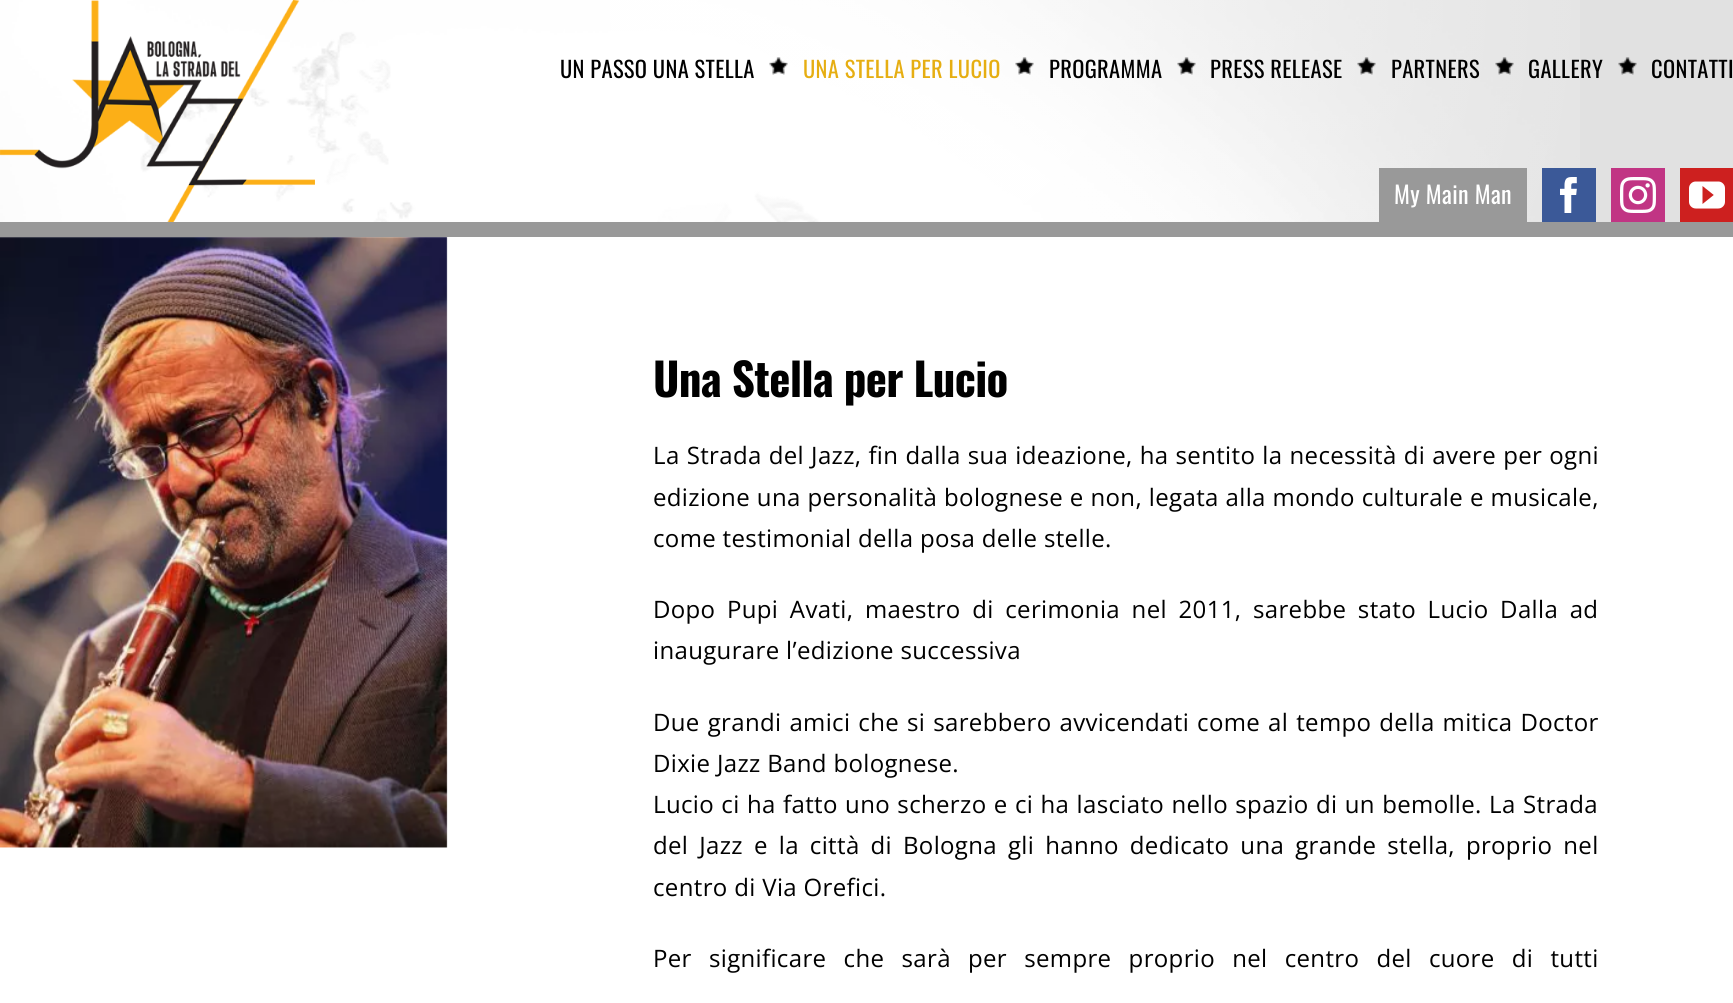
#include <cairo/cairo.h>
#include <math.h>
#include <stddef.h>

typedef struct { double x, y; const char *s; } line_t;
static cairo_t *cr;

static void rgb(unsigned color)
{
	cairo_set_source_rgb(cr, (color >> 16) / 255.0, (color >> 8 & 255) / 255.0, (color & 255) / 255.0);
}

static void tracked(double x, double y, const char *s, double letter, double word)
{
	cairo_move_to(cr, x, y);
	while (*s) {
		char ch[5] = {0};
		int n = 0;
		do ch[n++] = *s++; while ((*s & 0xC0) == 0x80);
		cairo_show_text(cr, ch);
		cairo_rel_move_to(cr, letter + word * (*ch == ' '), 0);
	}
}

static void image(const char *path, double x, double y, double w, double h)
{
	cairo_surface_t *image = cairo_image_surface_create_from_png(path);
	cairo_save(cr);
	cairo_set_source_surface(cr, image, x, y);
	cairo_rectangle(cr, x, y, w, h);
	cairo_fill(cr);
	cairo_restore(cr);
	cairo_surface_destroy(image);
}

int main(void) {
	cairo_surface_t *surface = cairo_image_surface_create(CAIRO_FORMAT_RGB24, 1733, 1003);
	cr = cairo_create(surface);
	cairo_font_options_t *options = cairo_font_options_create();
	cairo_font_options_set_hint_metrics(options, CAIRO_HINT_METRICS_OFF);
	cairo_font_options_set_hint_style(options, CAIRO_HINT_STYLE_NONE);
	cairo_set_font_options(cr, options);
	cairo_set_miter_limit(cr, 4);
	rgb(0xe1e1e1);
	cairo_paint(cr);
	image("img/1.png", 0, 0, 1580, 222);
	rgb(0x999999);
	cairo_rectangle(cr, 0, 222, 1733, 15);
	cairo_fill(cr);
	image("img/2.png", 0, 0, 315, 222);
	image("img/3.png", 769, 57, 19, 18);
	image("img/4.png", 1015, 57, 19, 18);
	image("img/5.png", 1177, 57, 19, 18);
	image("img/6.png", 1357, 57, 19, 18);
	image("img/7.png", 1495, 57, 19, 18);
	image("img/8.png", 1618, 57, 19, 18);
	cairo_rectangle(cr, 1379, 168, 148, 54);
	cairo_fill(cr);
	rgb(0x3b5998);
	cairo_rectangle(cr, 1542, 168, 54, 54);
	cairo_fill(cr);
	image("img/9.png", 1560, 177, 17, 36);
	rgb(0xc13584);
	cairo_rectangle(cr, 1611, 168, 54, 54);
	cairo_fill(cr);
	image("img/10.png", 1620, 177, 36, 36);
	rgb(0xcd201f);
	cairo_rectangle(cr, 1680, 168, 53, 54);
	cairo_fill(cr);
	image("img/11.png", 1689, 181, 36, 28);
	rgb(0xffffff);
	cairo_rectangle(cr, 0, 237, 1733, 766);
	cairo_fill(cr);
	image("img/12.png", 0, 237, 448, 611);
	cairo_select_font_face(cr, "Oswald", CAIRO_FONT_SLANT_NORMAL, CAIRO_FONT_WEIGHT_NORMAL);
	cairo_set_font_size(cr, 22.5);
	rgb(0x000000);
	tracked(560, 78, "UN PASSO UNA STELLA", 0.35, 0);
	rgb(0xe6ae12);
	tracked(803, 78, "UNA STELLA PER LUCIO", 0.35, 0);
	rgb(0x000000);
	{
		static const line_t items[] = {
			{1049, 78, "PROGRAMMA"},
			{1210, 78, "PRESS RELEASE"},
			{1391, 78, "PARTNERS"},
			{1528, 78, "GALLERY"},
			{1651, 78, "CONTATTI"},
		};
		for (size_t i = 0; i < sizeof items / sizeof *items; i++) {
			tracked(items[i].x, items[i].y, items[i].s, 0.35, 0);
		}
	}
	cairo_set_font_size(cr, 24);
	rgb(0xffffff);
	tracked(1394, 204, "My Main Man", 0.35, 0);
	cairo_select_font_face(cr, "Oswald", CAIRO_FONT_SLANT_NORMAL, CAIRO_FONT_WEIGHT_BOLD);
	cairo_set_font_size(cr, 45);
	rgb(0x000000);
	tracked(653, 397, "Una Stella per Lucio", -0.7, 0);
	cairo_select_font_face(cr, "Open Sans", CAIRO_FONT_SLANT_NORMAL, CAIRO_FONT_WEIGHT_NORMAL);
	cairo_set_font_size(cr, 24);
	tracked(653, 464, "La Strada del Jazz, fin dalla sua ideazione, ha sentito la necessità di avere per ogni", 0.35, 0.5);
	tracked(653, 506, "edizione una personalità bolognese e non, legata alla mondo culturale e musicale,", 0.35, 0.25);
	tracked(653, 547, "come testimonial della posa delle stelle.", 0.35, 0);
	tracked(653, 618, "Dopo Pupi Avati, maestro di cerimonia nel 2011, sarebbe stato Lucio Dalla ad", 0.35, 5);
	tracked(653, 659, "inaugurare l’edizione successiva", 0.35, 0);
	tracked(653, 731, "Due grandi amici che si sarebbero avvicendati come al tempo della mitica Doctor", 0.35, 1.4);
	tracked(653, 772, "Dixie Jazz Band bolognese.", 0.35, 0);
	tracked(653, 813, "Lucio ci ha fatto uno scherzo e ci ha lasciato nello spazio di un bemolle. La Strada", 0.35, 0.75);
	tracked(653, 854, "del Jazz e la città di Bologna gli hanno dedicato una grande stella, proprio nel", 0.35, 4.4);
	tracked(653, 896, "centro di Via Orefici.", 0.35, 0);
	tracked(653, 967, "Per significare che sarà per sempre proprio nel centro del cuore di tutti", 0.35, 10.6);
	cairo_surface_write_to_png(surface, "page.png");
	cairo_font_options_destroy(options);
	cairo_destroy(cr);
	cairo_surface_destroy(surface);
	return 0;
}
